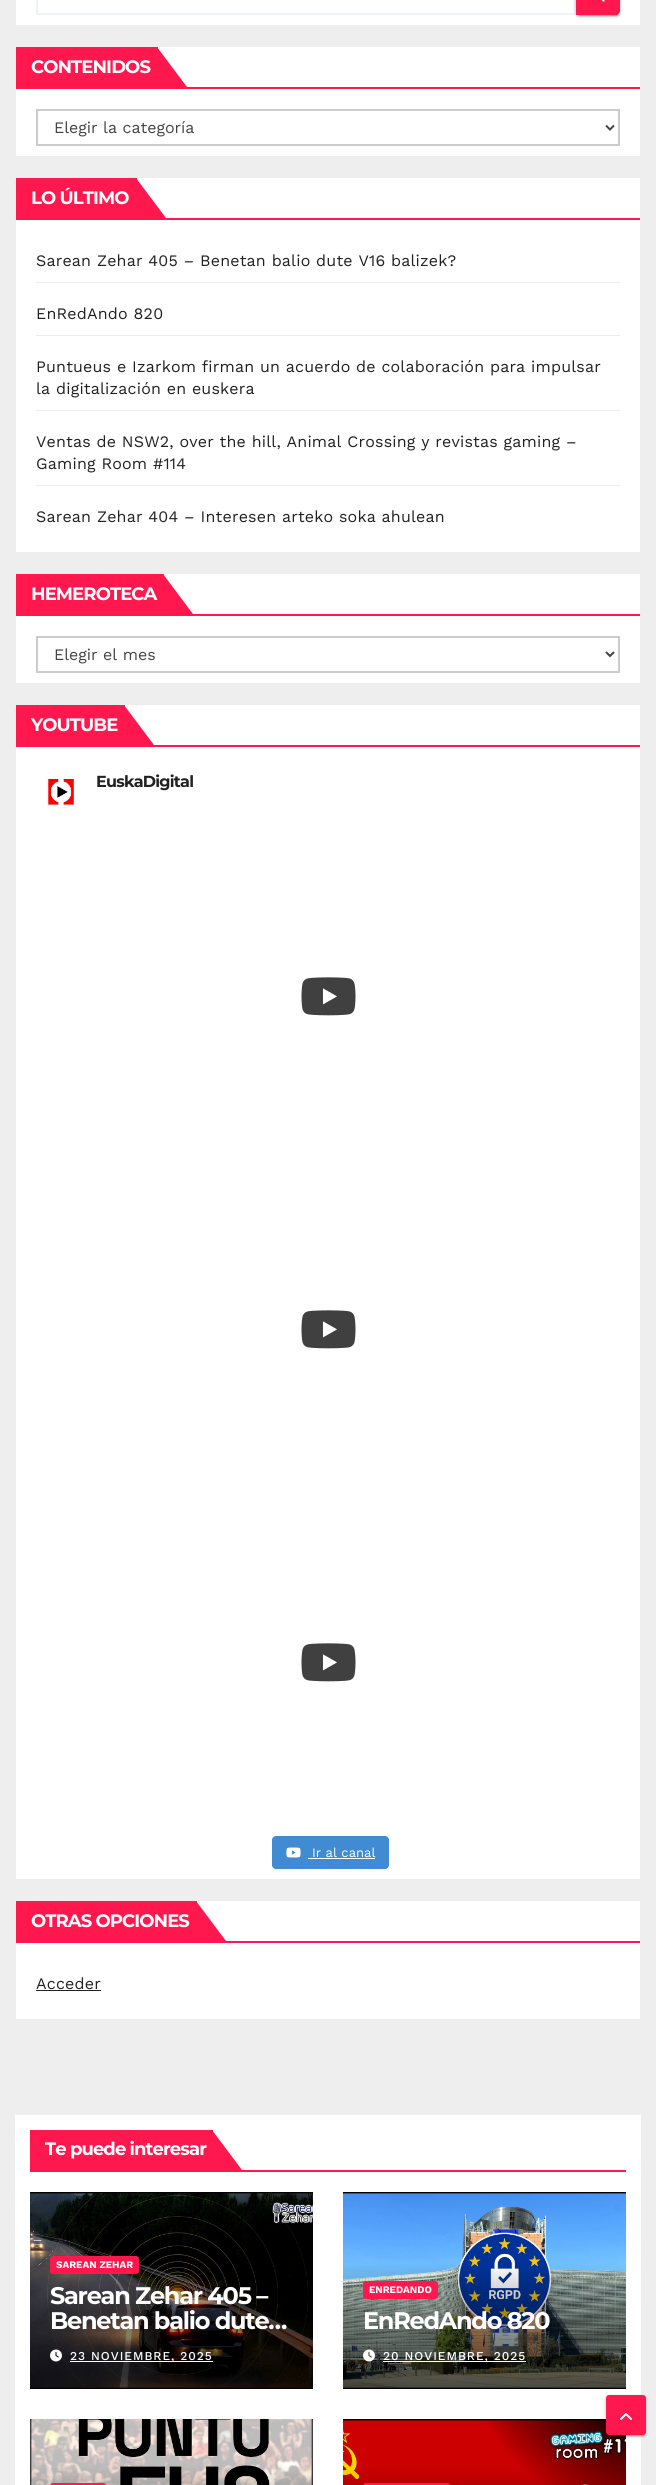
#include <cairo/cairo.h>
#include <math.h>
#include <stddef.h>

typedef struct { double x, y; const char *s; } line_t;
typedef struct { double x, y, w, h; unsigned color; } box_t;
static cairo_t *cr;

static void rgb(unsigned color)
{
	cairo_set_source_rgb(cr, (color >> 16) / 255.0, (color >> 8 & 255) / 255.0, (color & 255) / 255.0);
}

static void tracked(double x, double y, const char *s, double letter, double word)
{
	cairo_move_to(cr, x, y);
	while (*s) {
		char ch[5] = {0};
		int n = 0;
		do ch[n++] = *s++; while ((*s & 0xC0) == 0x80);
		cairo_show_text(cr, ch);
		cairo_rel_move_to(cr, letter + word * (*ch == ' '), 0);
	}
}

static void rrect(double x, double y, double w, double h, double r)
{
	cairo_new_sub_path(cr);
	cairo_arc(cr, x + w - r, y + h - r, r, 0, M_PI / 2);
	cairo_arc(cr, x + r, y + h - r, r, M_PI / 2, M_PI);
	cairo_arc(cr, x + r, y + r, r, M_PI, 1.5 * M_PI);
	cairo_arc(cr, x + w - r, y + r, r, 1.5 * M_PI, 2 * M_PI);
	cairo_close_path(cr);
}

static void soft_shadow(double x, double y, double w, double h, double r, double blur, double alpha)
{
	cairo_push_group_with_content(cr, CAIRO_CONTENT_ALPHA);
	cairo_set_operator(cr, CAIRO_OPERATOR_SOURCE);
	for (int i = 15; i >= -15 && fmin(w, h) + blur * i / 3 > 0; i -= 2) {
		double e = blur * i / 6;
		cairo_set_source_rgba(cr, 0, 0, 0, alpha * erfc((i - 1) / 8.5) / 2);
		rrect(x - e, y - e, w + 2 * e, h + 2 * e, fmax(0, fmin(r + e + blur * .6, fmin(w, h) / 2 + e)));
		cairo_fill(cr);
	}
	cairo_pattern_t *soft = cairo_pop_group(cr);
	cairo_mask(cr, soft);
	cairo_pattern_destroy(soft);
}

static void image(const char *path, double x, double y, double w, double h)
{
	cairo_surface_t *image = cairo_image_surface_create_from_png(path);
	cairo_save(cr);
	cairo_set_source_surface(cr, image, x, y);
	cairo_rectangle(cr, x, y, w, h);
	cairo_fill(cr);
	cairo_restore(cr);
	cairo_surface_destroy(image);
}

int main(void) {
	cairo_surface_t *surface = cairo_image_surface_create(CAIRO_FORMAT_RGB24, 656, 2485);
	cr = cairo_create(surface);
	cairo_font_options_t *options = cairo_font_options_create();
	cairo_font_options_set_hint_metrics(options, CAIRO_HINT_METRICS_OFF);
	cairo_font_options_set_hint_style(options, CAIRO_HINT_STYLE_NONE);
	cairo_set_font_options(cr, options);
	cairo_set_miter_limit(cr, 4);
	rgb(0xeeeeee);
	cairo_paint(cr);
	rgb(0xffffff);
	cairo_rectangle(cr, 16, 0, 624, 25);
	cairo_fill(cr);
	cairo_rectangle(cr, 37, -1, 538, 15);
	rgb(0xeef3fb);
	cairo_stroke(cr);
	rgb(0x000000);
	soft_shadow(576, -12, 44, 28, 4, 2.5, 0.12);
	soft_shadow(578, -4, 40, 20, 2, 0.5, 0.2);
	soft_shadow(576, -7, 44, 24, 4, 1, 0.14);
	rgb(0xff184e);
	cairo_new_path(cr);
	cairo_move_to(cr, 576, -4);
	cairo_line_to(cr, 616, -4);
	cairo_curve_to(cr, 618, -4, 620, -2, 620, 0);
	cairo_line_to(cr, 620, 11);
	cairo_curve_to(cr, 620, 13, 618, 15, 616, 15);
	cairo_line_to(cr, 576, 15);
	cairo_close_path(cr);
	cairo_fill(cr);
	image("img/1.png", 601, 0, 4, 2);
	{
		static const box_t items[] = {
			{16, 47, 624, 109, 0xffffff},
			{16, 87, 624, 2, 0xff184e},
			{16, 47, 142, 40, 0xff184e},
		};
		for (size_t i = 0; i < sizeof items / sizeof *items; i++) {
			rgb(items[i].color);
			cairo_rectangle(cr, items[i].x, items[i].y, items[i].w, items[i].h);
			cairo_fill(cr);
		}
	}
	cairo_new_path(cr);
	cairo_move_to(cr, 157, 87);
	cairo_line_to(cr, 157, 47);
	cairo_line_to(cr, 187, 87);
	cairo_close_path(cr);
	cairo_fill(cr);
	cairo_rectangle(cr, 37, 110, 582, 35);
	rgb(0xcccccc);
	cairo_stroke(cr);
	cairo_new_path(cr);
	cairo_move_to(cr, 606, 125.5);
	cairo_line_to(cr, 610, 129.5);
	cairo_line_to(cr, 614, 125.5);
	rgb(0x444444);
	cairo_stroke(cr);
	{
		static const box_t items[] = {
			{16, 178, 624, 374, 0xffffff},
			{16, 218, 624, 2, 0xff184e},
			{16, 178, 121, 40, 0xff184e},
		};
		for (size_t i = 0; i < sizeof items / sizeof *items; i++) {
			rgb(items[i].color);
			cairo_rectangle(cr, items[i].x, items[i].y, items[i].w, items[i].h);
			cairo_fill(cr);
		}
	}
	cairo_new_path(cr);
	cairo_move_to(cr, 136, 218);
	cairo_line_to(cr, 136, 178);
	cairo_line_to(cr, 166, 218);
	cairo_close_path(cr);
	cairo_fill(cr);
	{
		static const box_t items[] = {
			{36, 282, 584, 1, 0xeeeeee},
			{36, 335, 584, 1, 0xeeeeee},
			{36, 410, 584, 1, 0xeeeeee},
			{36, 485, 584, 1, 0xeeeeee},
			{16, 574, 624, 109, 0xffffff},
			{16, 614, 624, 2, 0xff184e},
			{16, 574, 148, 40, 0xff184e},
		};
		for (size_t i = 0; i < sizeof items / sizeof *items; i++) {
			rgb(items[i].color);
			cairo_rectangle(cr, items[i].x, items[i].y, items[i].w, items[i].h);
			cairo_fill(cr);
		}
	}
	cairo_new_path(cr);
	cairo_move_to(cr, 163, 614);
	cairo_line_to(cr, 163, 574);
	cairo_line_to(cr, 193, 614);
	cairo_close_path(cr);
	cairo_fill(cr);
	cairo_rectangle(cr, 37, 637, 582, 35);
	rgb(0xcccccc);
	cairo_stroke(cr);
	cairo_new_path(cr);
	cairo_move_to(cr, 606, 652);
	cairo_line_to(cr, 610, 656);
	cairo_line_to(cr, 614, 652);
	rgb(0x444444);
	cairo_stroke(cr);
	{
		static const box_t items[] = {
			{16, 705, 624, 1174, 0xffffff},
			{16, 745, 624, 2, 0xff184e},
			{16, 705, 109, 40, 0xff184e},
		};
		for (size_t i = 0; i < sizeof items / sizeof *items; i++) {
			rgb(items[i].color);
			cairo_rectangle(cr, items[i].x, items[i].y, items[i].w, items[i].h);
			cairo_fill(cr);
		}
	}
	cairo_new_path(cr);
	cairo_move_to(cr, 124, 745);
	cairo_line_to(cr, 124, 705);
	cairo_line_to(cr, 154, 745);
	cairo_close_path(cr);
	cairo_fill(cr);
	image("img/2.png", 45, 776, 32, 32);
	image("img/3.png", 301, 977, 55, 39);
	image("img/3.png", 301, 1310, 55, 39);
	image("img/3.png", 301, 1643, 55, 39);
	rgb(0x408bd1);
	rrect(272, 1836, 117, 33, 4);
	cairo_fill(cr);
	image("img/4.png", 286, 1847, 15, 11);
	{
		static const box_t items[] = {
			{308, 1858, 67, 1, 0xffffff},
			{16, 1901, 624, 118, 0xffffff},
			{16, 1941, 624, 2, 0xff184e},
			{16, 1901, 181, 40, 0xff184e},
		};
		for (size_t i = 0; i < sizeof items / sizeof *items; i++) {
			rgb(items[i].color);
			cairo_rectangle(cr, items[i].x, items[i].y, items[i].w, items[i].h);
			cairo_fill(cr);
		}
	}
	cairo_new_path(cr);
	cairo_move_to(cr, 196, 1941);
	cairo_line_to(cr, 196, 1901);
	cairo_line_to(cr, 226, 1941);
	cairo_close_path(cr);
	cairo_fill(cr);
	{
		static const box_t items[] = {
			{36, 1990, 65, 1, 0x222222},
			{15, 2115, 626, 370, 0xffffff},
			{30, 2170, 596, 2, 0xff184e},
			{30, 2130, 183, 40, 0xff184e},
		};
		for (size_t i = 0; i < sizeof items / sizeof *items; i++) {
			rgb(items[i].color);
			cairo_rectangle(cr, items[i].x, items[i].y, items[i].w, items[i].h);
			cairo_fill(cr);
		}
	}
	cairo_new_path(cr);
	cairo_move_to(cr, 212, 2170);
	cairo_line_to(cr, 212, 2130);
	cairo_line_to(cr, 242, 2170);
	cairo_close_path(cr);
	cairo_fill(cr);
	image("img/5.png", 30, 2192, 283, 197);
	rrect(50, 2256, 89, 18, 3);
	cairo_fill(cr);
	image("img/6.png", 50, 2349, 12, 13);
	rgb(0xffffff);
	cairo_rectangle(cr, 70, 2361, 143, 1);
	cairo_fill(cr);
	image("img/7.png", 343, 2192, 283, 197);
	rgb(0xff184e);
	rrect(363, 2281, 75, 18, 3);
	cairo_fill(cr);
	image("img/8.png", 363, 2349, 12, 13);
	rgb(0xffffff);
	cairo_rectangle(cr, 383, 2361, 143, 1);
	cairo_fill(cr);
	image("img/9.png", 30, 2419, 283, 66);
	rgb(0xff184e);
	rrect(50, 2483, 56, 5, 3);
	cairo_fill(cr);
	image("img/10.png", 343, 2419, 283, 66);
	rrect(363, 2483, 87, 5, 3);
	cairo_fill(cr);
	rgb(0x000000);
	soft_shadow(606, 2396, 40, 40, 3, 2.5, 0.12);
	soft_shadow(608, 2400, 36, 36, 1, 0.5, 0.2);
	soft_shadow(606, 2397, 40, 40, 3, 1, 0.14);
	rgb(0xff184e);
	rrect(607, 2396, 38, 38, 2);
	cairo_fill_preserve(cr);
	cairo_stroke(cr);
	image("img/11.png", 620, 2413, 12, 7);
	cairo_select_font_face(cr, "Montserrat", CAIRO_FONT_SLANT_NORMAL, CAIRO_FONT_WEIGHT_BOLD);
	cairo_set_font_size(cr, 18);
	rgb(0xffffff);
	tracked(31, 73, "CONTENIDOS", -0.9, 0);
	cairo_select_font_face(cr, "Work Sans", CAIRO_FONT_SLANT_NORMAL, CAIRO_FONT_WEIGHT_NORMAL);
	cairo_set_font_size(cr, 16);
	rgb(0x444444);
	cairo_move_to(cr, 54, 133);
	cairo_show_text(cr, "Elegir la categoría");
	cairo_select_font_face(cr, "Montserrat", CAIRO_FONT_SLANT_NORMAL, CAIRO_FONT_WEIGHT_BOLD);
	cairo_set_font_size(cr, 18);
	rgb(0xffffff);
	tracked(31, 204, "LO ÚLTIMO", -0.9, 0);
	cairo_select_font_face(cr, "Work Sans", CAIRO_FONT_SLANT_NORMAL, CAIRO_FONT_WEIGHT_NORMAL);
	cairo_set_font_size(cr, 16);
	rgb(0x212121);
	{
		static const line_t items[] = {
			{36, 266, "Sarean Zehar 405 – Benetan balio dute V16 balizek?"},
			{36, 319, "EnRedAndo 820"},
			{36, 372, "Puntueus e Izarkom firman un acuerdo de colaboración para impulsar"},
			{36, 394, "la digitalización en euskera"},
			{36, 447, "Ventas de NSW2, over the hill, Animal Crossing y revistas gaming –"},
			{36, 469, "Gaming Room #114"},
			{36, 522, "Sarean Zehar 404 – Interesen arteko soka ahulean"},
		};
		for (size_t i = 0; i < sizeof items / sizeof *items; i++) {
			tracked(items[i].x, items[i].y, items[i].s, 0.2, 0);
		}
	}
	cairo_select_font_face(cr, "Montserrat", CAIRO_FONT_SLANT_NORMAL, CAIRO_FONT_WEIGHT_BOLD);
	cairo_set_font_size(cr, 18);
	rgb(0xffffff);
	tracked(31, 600, "HEMEROTECA", -0.9, 0);
	cairo_select_font_face(cr, "Work Sans", CAIRO_FONT_SLANT_NORMAL, CAIRO_FONT_WEIGHT_NORMAL);
	cairo_set_font_size(cr, 16);
	rgb(0x444444);
	cairo_move_to(cr, 54, 660);
	cairo_show_text(cr, "Elegir el mes");
	cairo_select_font_face(cr, "Montserrat", CAIRO_FONT_SLANT_NORMAL, CAIRO_FONT_WEIGHT_BOLD);
	cairo_set_font_size(cr, 18);
	rgb(0xffffff);
	tracked(31, 731, "YOUTUBE", -0.9, 0);
	cairo_set_font_size(cr, 16);
	rgb(0x212121);
	tracked(96, 787, "EuskaDigital", -0.75, 0);
	cairo_select_font_face(cr, "Work Sans", CAIRO_FONT_SLANT_NORMAL, CAIRO_FONT_WEIGHT_NORMAL);
	cairo_set_font_size(cr, 13);
	rgb(0xffffff);
	cairo_move_to(cr, 312, 1857);
	cairo_show_text(cr, "Ir al canal");
	cairo_select_font_face(cr, "Montserrat", CAIRO_FONT_SLANT_NORMAL, CAIRO_FONT_WEIGHT_BOLD);
	cairo_set_font_size(cr, 18);
	tracked(31, 1927, "OTRAS OPCIONES", -0.9, 0);
	cairo_select_font_face(cr, "Work Sans", CAIRO_FONT_SLANT_NORMAL, CAIRO_FONT_WEIGHT_NORMAL);
	cairo_set_font_size(cr, 16);
	rgb(0x212121);
	tracked(36, 1989, "Acceder", 0.2, 0);
	cairo_select_font_face(cr, "Montserrat", CAIRO_FONT_SLANT_NORMAL, CAIRO_FONT_WEIGHT_BOLD);
	cairo_set_font_size(cr, 18);
	rgb(0xffffff);
	tracked(45, 2155, "Te puede interesar", -0.9, 0);
	cairo_select_font_face(cr, "Work Sans", CAIRO_FONT_SLANT_NORMAL, CAIRO_FONT_WEIGHT_BOLD);
	cairo_set_font_size(cr, 10);
	cairo_move_to(cr, 56, 2268);
	cairo_show_text(cr, "SAREAN ZEHAR");
	cairo_select_font_face(cr, "Montserrat", CAIRO_FONT_SLANT_NORMAL, CAIRO_FONT_WEIGHT_BOLD);
	cairo_set_font_size(cr, 24);
	tracked(50, 2304, "Sarean Zehar 405 –", -1.25, 0);
	tracked(50, 2329, "Benetan balio dute…", -1.25, 0);
	cairo_select_font_face(cr, "Work Sans Medium", CAIRO_FONT_SLANT_NORMAL, CAIRO_FONT_WEIGHT_NORMAL);
	cairo_set_font_size(cr, 12);
	tracked(70, 2360, "23 NOVIEMBRE, 2025", 1, 0);
	cairo_select_font_face(cr, "Work Sans", CAIRO_FONT_SLANT_NORMAL, CAIRO_FONT_WEIGHT_BOLD);
	cairo_set_font_size(cr, 10);
	cairo_move_to(cr, 369, 2293);
	cairo_show_text(cr, "ENREDANDO");
	cairo_select_font_face(cr, "Montserrat", CAIRO_FONT_SLANT_NORMAL, CAIRO_FONT_WEIGHT_BOLD);
	cairo_set_font_size(cr, 24);
	tracked(363, 2329, "EnRedAndo 820", -1.25, 0);
	cairo_select_font_face(cr, "Work Sans Medium", CAIRO_FONT_SLANT_NORMAL, CAIRO_FONT_WEIGHT_NORMAL);
	cairo_set_font_size(cr, 12);
	tracked(383, 2360, "20 NOVIEMBRE, 2025", 1, 0);
	cairo_surface_write_to_png(surface, "page.png");
	cairo_font_options_destroy(options);
	cairo_destroy(cr);
	cairo_surface_destroy(surface);
	return 0;
}
